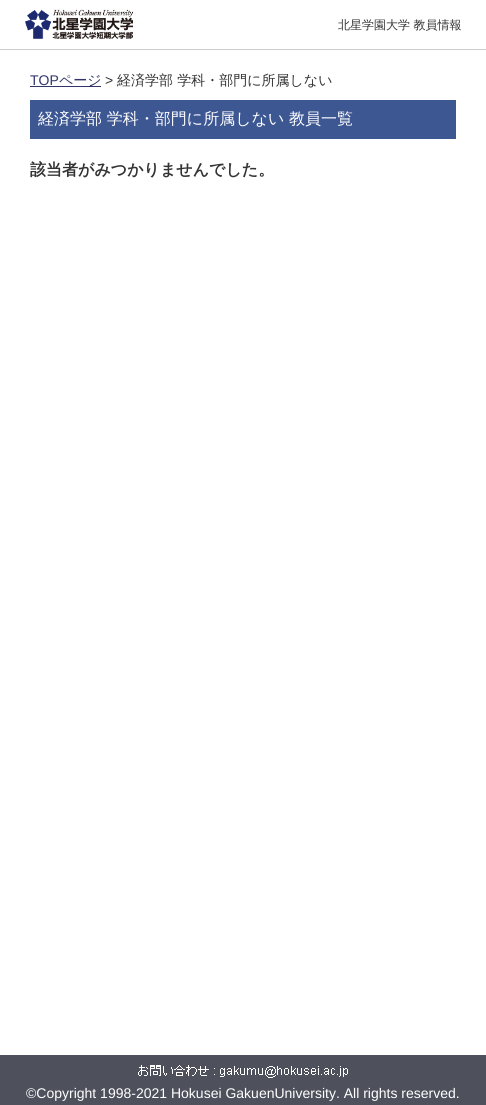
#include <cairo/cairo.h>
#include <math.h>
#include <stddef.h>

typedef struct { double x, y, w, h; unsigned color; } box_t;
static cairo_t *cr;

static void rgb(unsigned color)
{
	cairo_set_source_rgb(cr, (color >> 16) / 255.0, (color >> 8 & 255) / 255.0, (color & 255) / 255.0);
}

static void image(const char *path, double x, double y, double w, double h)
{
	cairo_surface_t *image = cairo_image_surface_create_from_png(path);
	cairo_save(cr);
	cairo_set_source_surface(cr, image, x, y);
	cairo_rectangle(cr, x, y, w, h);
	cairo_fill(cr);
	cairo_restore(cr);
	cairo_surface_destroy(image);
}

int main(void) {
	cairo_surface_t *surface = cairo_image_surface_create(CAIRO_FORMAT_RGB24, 486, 1105);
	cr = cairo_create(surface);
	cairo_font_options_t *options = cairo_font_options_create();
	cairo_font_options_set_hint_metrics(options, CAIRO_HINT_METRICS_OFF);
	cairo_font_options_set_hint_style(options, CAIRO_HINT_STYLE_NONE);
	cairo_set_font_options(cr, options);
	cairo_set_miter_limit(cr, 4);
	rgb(0xffffff);
	cairo_paint(cr);
	rgb(0xcccccc);
	cairo_rectangle(cr, 0, 49, 486, 1);
	cairo_fill(cr);
	image("img/1.png", 25, 9, 108, 30);
	{
		static const box_t items[] = {
			{30, 86, 71, 1, 0x30356c},
			{30, 100, 426, 39, 0x3d5793},
			{0, 1055, 486, 50, 0x4e515c},
		};
		for (size_t i = 0; i < sizeof items / sizeof *items; i++) {
			rgb(items[i].color);
			cairo_rectangle(cr, items[i].x, items[i].y, items[i].w, items[i].h);
			cairo_fill(cr);
		}
	}
	image("img/2.png", 138, 1065, 210, 13);
	cairo_select_font_face(cr, "WenQuanYi Zen Hei Medium", CAIRO_FONT_SLANT_NORMAL, CAIRO_FONT_WEIGHT_NORMAL);
	cairo_set_font_size(cr, 12);
	rgb(0x333333);
	cairo_move_to(cr, 338, 29);
	cairo_show_text(cr, "北星学園大学 教員情報");
	cairo_select_font_face(cr, "Liberation Sans", CAIRO_FONT_SLANT_NORMAL, CAIRO_FONT_WEIGHT_NORMAL);
	cairo_set_font_size(cr, 14);
	rgb(0x30356c);
	cairo_move_to(cr, 30, 85);
	cairo_show_text(cr, "TOP");
	cairo_select_font_face(cr, "WenQuanYi Zen Hei Medium", CAIRO_FONT_SLANT_NORMAL, CAIRO_FONT_WEIGHT_NORMAL);
	cairo_move_to(cr, 59, 85);
	cairo_show_text(cr, "ページ");
	cairo_select_font_face(cr, "Liberation Sans", CAIRO_FONT_SLANT_NORMAL, CAIRO_FONT_WEIGHT_NORMAL);
	rgb(0x333333);
	cairo_move_to(cr, 105, 85);
	cairo_show_text(cr, ">");
	cairo_select_font_face(cr, "WenQuanYi Zen Hei Medium", CAIRO_FONT_SLANT_NORMAL, CAIRO_FONT_WEIGHT_NORMAL);
	cairo_move_to(cr, 117, 85);
	cairo_show_text(cr, "経済学部 学科・部門に所属しない");
	cairo_set_font_size(cr, 16);
	rgb(0xffffff);
	cairo_move_to(cr, 38, 124);
	cairo_show_text(cr, "経済学部 学科・部門に所属しない 教員一覧");
	cairo_select_font_face(cr, "WenQuanYi Zen Hei", CAIRO_FONT_SLANT_NORMAL, CAIRO_FONT_WEIGHT_BOLD);
	rgb(0x333333);
	cairo_move_to(cr, 30, 175);
	cairo_show_text(cr, "該当者がみつかりませんでした。");
	cairo_select_font_face(cr, "Liberation Sans", CAIRO_FONT_SLANT_NORMAL, CAIRO_FONT_WEIGHT_NORMAL);
	cairo_set_font_size(cr, 14);
	rgb(0xffffff);
	cairo_move_to(cr, 26, 1098);
	cairo_show_text(cr, "©Copyright 1998-2021 Hokusei GakuenUniversity. All rights reserved.");
	cairo_surface_write_to_png(surface, "page.png");
	cairo_font_options_destroy(options);
	cairo_destroy(cr);
	cairo_surface_destroy(surface);
	return 0;
}
